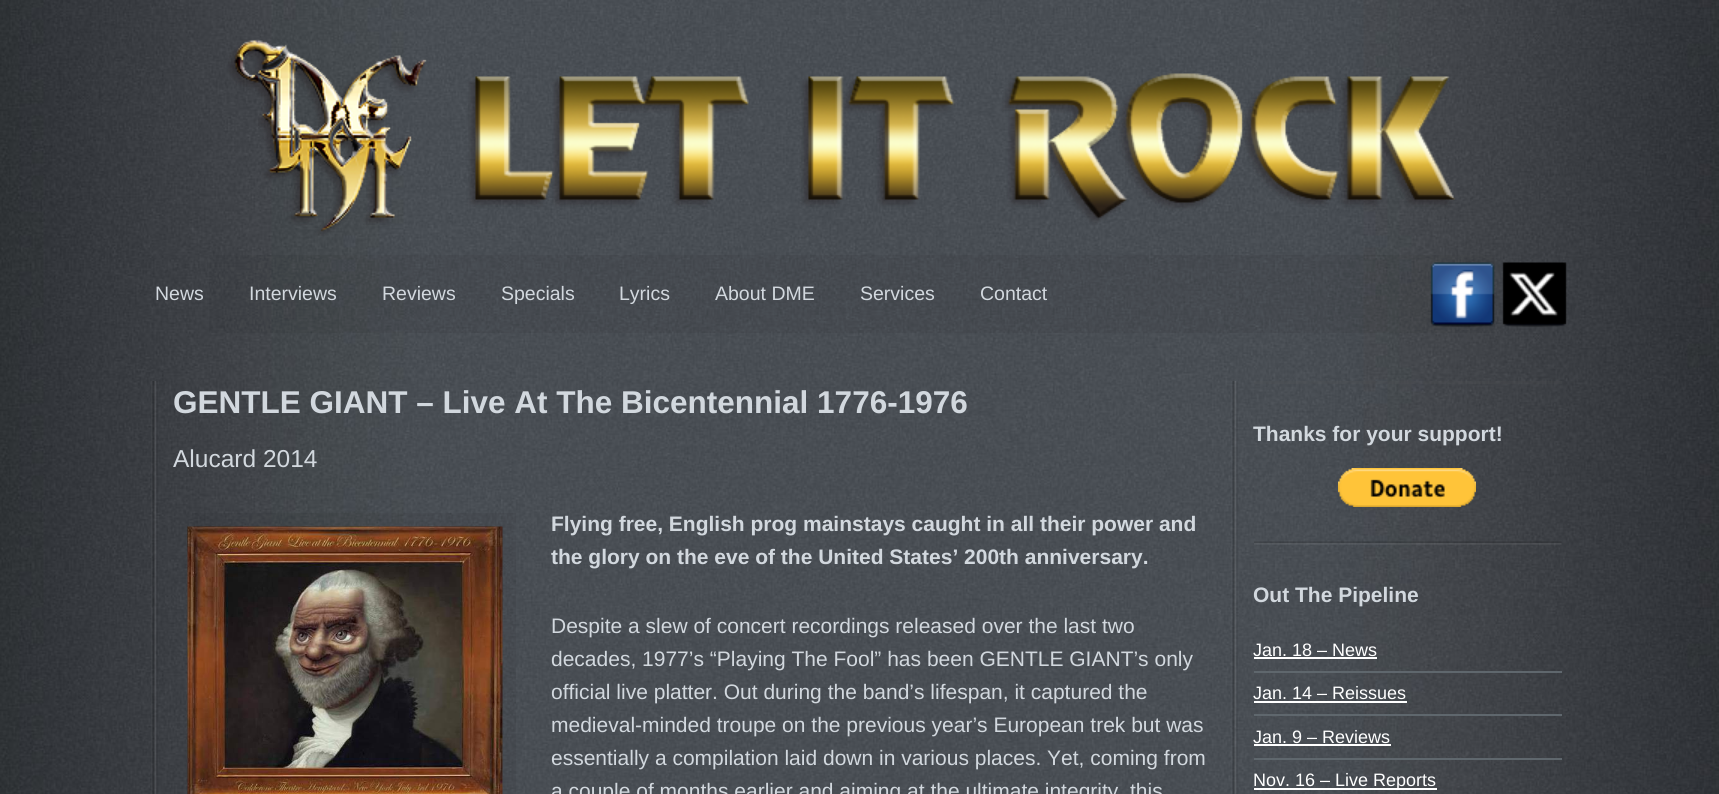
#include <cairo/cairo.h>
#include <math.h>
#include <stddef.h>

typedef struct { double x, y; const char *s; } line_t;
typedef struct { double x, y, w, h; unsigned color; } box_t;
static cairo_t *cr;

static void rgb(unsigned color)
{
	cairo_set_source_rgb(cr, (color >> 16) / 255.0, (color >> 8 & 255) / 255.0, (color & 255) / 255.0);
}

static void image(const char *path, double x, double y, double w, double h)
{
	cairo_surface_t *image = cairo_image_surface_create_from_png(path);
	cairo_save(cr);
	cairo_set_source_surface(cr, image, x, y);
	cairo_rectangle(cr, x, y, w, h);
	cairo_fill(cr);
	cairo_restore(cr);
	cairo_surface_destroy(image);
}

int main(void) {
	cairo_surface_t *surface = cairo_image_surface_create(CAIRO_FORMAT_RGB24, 1719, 794);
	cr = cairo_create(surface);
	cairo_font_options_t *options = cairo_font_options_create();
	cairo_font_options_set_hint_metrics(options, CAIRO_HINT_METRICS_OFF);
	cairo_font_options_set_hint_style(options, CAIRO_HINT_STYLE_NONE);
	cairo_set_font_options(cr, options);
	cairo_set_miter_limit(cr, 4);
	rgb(0xffffff);
	cairo_paint(cr);
	image("img/1.png", 0, 0, 1719, 794);
	image("img/2.png", 228, 40, 1227, 196);
	cairo_set_source_rgba(cr, 0, 0, 0, 0.05);
	cairo_rectangle(cr, 209, 255, 1286, 78);
	cairo_fill(cr);
	image("img/3.png", 1430, 262, 65, 65);
	image("img/4.png", 1502, 262, 65, 65);
	image("img/5.png", 151, 381, 7, 413);
	cairo_rectangle(cr, 192, 513, 324, 281);
	cairo_fill(cr);
	image("img/6.png", 187, 526, 316, 268);
	image("img/7.png", 1231, 381, 7, 413);
	cairo_set_source_rgba(cr, 0.341, 0.341, 0.341, 0.15);
	cairo_rectangle(cr, 1254, 381, 308, 3);
	cairo_fill(cr);
	image("img/8.png", 1338, 468, 138, 39);
	image("img/9.png", 1254, 541, 308, 4);
	{
		static const box_t items[] = {
			{1254, 657, 123, 2, 0xffffff},
			{1254, 671, 308, 2, 0x5f676d},
			{1254, 701, 153, 2, 0xffffff},
			{1254, 714, 308, 2, 0x5f676d},
			{1254, 744, 137, 2, 0xffffff},
			{1254, 758, 308, 2, 0x5f676d},
			{1254, 788, 183, 2, 0xffffff},
		};
		for (size_t i = 0; i < sizeof items / sizeof *items; i++) {
			rgb(items[i].color);
			cairo_rectangle(cr, items[i].x, items[i].y, items[i].w, items[i].h);
			cairo_fill(cr);
		}
	}
	cairo_select_font_face(cr, "Liberation Sans", CAIRO_FONT_SLANT_NORMAL, CAIRO_FONT_WEIGHT_NORMAL);
	cairo_set_font_size(cr, 19.5);
	rgb(0xd2d8de);
	{
		static const line_t items[] = {
			{155, 300, "News"},
			{249, 300, "Interviews"},
			{382, 300, "Reviews"},
			{501, 300, "Specials"},
			{619, 300, "Lyrics"},
			{715, 300, "About DME"},
			{860, 300, "Services"},
			{980, 300, "Contact"},
		};
		for (size_t i = 0; i < sizeof items / sizeof *items; i++) {
			cairo_move_to(cr, items[i].x, items[i].y);
			cairo_show_text(cr, items[i].s);
		}
	}
	cairo_select_font_face(cr, "Liberation Sans", CAIRO_FONT_SLANT_NORMAL, CAIRO_FONT_WEIGHT_BOLD);
	cairo_set_font_size(cr, 31.5);
	cairo_move_to(cr, 173, 413);
	cairo_show_text(cr, "GENTLE GIANT – Live At The Bicentennial 1776-1976");
	cairo_select_font_face(cr, "Liberation Sans", CAIRO_FONT_SLANT_NORMAL, CAIRO_FONT_WEIGHT_NORMAL);
	cairo_set_font_size(cr, 24.5);
	cairo_move_to(cr, 173, 467);
	cairo_show_text(cr, "Alucard 2014");
	cairo_select_font_face(cr, "Liberation Sans", CAIRO_FONT_SLANT_NORMAL, CAIRO_FONT_WEIGHT_BOLD);
	cairo_set_font_size(cr, 21);
	cairo_move_to(cr, 551, 531);
	cairo_show_text(cr, "Flying free, English prog mainstays caught in all their power and");
	cairo_move_to(cr, 551, 564);
	cairo_show_text(cr, "the glory on the eve of the United States’ 200th anniversary.");
	cairo_select_font_face(cr, "Liberation Sans", CAIRO_FONT_SLANT_NORMAL, CAIRO_FONT_WEIGHT_NORMAL);
	{
		static const line_t items[] = {
			{551, 633, "Despite a slew of concert recordings released over the last two"},
			{551, 666, "decades, 1977’s “Playing The Fool” has been GENTLE GIANT’s only"},
			{551, 699, "official live platter. Out during the band’s lifespan, it captured the"},
			{551, 732, "medieval-minded troupe on the previous year’s European trek but was"},
			{551, 765, "essentially a compilation laid down in various places. Yet, coming from"},
			{551, 798, "a couple of months earlier and aiming at the ultimate integrity, this"},
		};
		for (size_t i = 0; i < sizeof items / sizeof *items; i++) {
			cairo_move_to(cr, items[i].x, items[i].y);
			cairo_show_text(cr, items[i].s);
		}
	}
	cairo_select_font_face(cr, "Liberation Sans", CAIRO_FONT_SLANT_NORMAL, CAIRO_FONT_WEIGHT_BOLD);
	cairo_move_to(cr, 1253, 441);
	cairo_show_text(cr, "Thanks for your support!");
	cairo_move_to(cr, 1253, 602);
	cairo_show_text(cr, "Out The Pipeline");
	cairo_select_font_face(cr, "Liberation Sans", CAIRO_FONT_SLANT_NORMAL, CAIRO_FONT_WEIGHT_NORMAL);
	cairo_set_font_size(cr, 18);
	rgb(0xffffff);
	{
		static const line_t items[] = {
			{1253, 656, "Jan. 18 – News"},
			{1253, 699, "Jan. 14 – Reissues"},
			{1253, 743, "Jan. 9 – Reviews"},
			{1253, 786, "Nov. 16 – Live Reports"},
		};
		for (size_t i = 0; i < sizeof items / sizeof *items; i++) {
			cairo_move_to(cr, items[i].x, items[i].y);
			cairo_show_text(cr, items[i].s);
		}
	}
	cairo_surface_write_to_png(surface, "page.png");
	cairo_font_options_destroy(options);
	cairo_destroy(cr);
	cairo_surface_destroy(surface);
	return 0;
}
